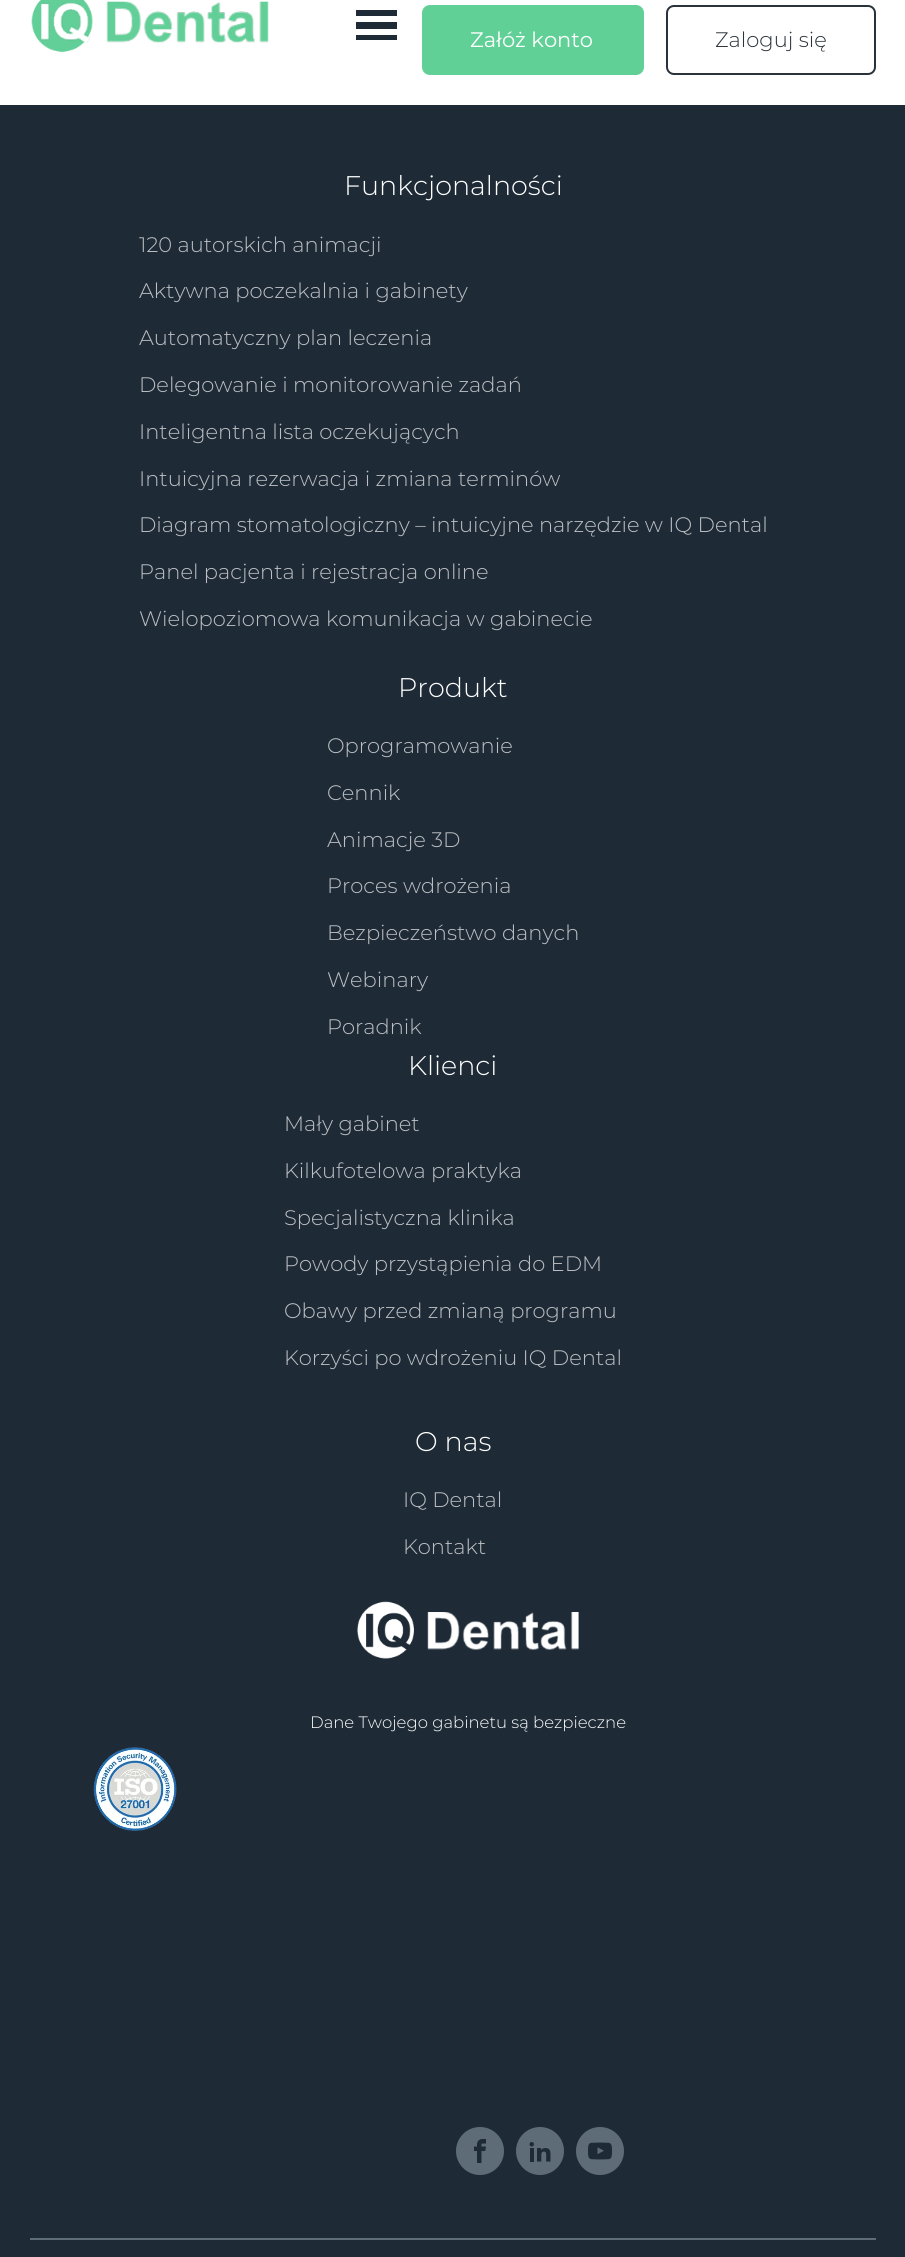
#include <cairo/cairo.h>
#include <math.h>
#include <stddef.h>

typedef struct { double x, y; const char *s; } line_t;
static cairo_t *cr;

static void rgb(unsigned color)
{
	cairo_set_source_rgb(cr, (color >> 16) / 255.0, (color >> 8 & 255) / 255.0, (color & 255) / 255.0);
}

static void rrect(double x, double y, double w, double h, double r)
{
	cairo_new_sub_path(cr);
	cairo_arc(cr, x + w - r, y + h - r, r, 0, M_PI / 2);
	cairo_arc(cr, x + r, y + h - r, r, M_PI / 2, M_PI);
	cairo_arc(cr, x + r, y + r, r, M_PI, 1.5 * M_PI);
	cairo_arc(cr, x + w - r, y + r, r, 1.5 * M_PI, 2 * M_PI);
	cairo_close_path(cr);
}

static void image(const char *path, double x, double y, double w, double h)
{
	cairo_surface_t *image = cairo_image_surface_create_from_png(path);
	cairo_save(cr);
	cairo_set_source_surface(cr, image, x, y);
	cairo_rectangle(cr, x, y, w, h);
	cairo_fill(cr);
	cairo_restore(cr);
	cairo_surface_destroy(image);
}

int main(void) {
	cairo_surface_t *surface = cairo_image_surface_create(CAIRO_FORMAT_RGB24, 905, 2257);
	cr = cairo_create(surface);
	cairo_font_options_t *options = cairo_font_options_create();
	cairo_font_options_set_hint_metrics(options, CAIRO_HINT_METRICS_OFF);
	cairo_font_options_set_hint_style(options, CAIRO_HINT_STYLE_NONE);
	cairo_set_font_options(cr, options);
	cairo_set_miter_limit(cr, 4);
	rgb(0xffffff);
	cairo_paint(cr);
	image("img/1.png", 31, 0, 238, 52);
	rgb(0x1e2b37);
	cairo_new_path(cr);
	cairo_move_to(cr, 356, 40);
	cairo_line_to(cr, 397, 40);
	cairo_line_to(cr, 397, 35);
	cairo_line_to(cr, 356, 35);
	cairo_close_path(cr);
	cairo_move_to(cr, 356, 10);
	cairo_line_to(cr, 356, 16);
	cairo_line_to(cr, 397, 16);
	cairo_line_to(cr, 397, 10);
	cairo_close_path(cr);
	cairo_move_to(cr, 356, 29);
	cairo_line_to(cr, 397, 29);
	cairo_line_to(cr, 397, 22);
	cairo_line_to(cr, 356, 22);
	cairo_close_path(cr);
	cairo_fill(cr);
	rgb(0x60d096);
	rrect(423, 6, 220, 68, 7);
	cairo_fill_preserve(cr);
	cairo_stroke(cr);
	rrect(667, 6, 208, 68, 7);
	rgb(0x29333b);
	cairo_stroke(cr);
	rgb(0x1e2b37);
	cairo_rectangle(cr, 0, 105, 905, 2152);
	cairo_fill(cr);
	image("img/2.png", 357, 1601, 222, 58);
	image("img/3.png", 93, 1747, 84, 84);
	rgb(0x5e6c77);
	cairo_arc(cr, 480, 2151, 24, 0, 2 * M_PI);
	cairo_fill(cr);
	image("img/4.png", 474, 2139, 12, 24);
	cairo_arc(cr, 540, 2151, 24, 0, 2 * M_PI);
	cairo_fill(cr);
	image("img/5.png", 529, 2142, 22, 20);
	cairo_arc(cr, 600, 2151, 24, 0, 2 * M_PI);
	cairo_fill(cr);
	image("img/6.png", 588, 2142, 24, 18);
	cairo_rectangle(cr, 30, 2238, 846, 2);
	cairo_fill(cr);
	cairo_select_font_face(cr, "Montserrat", CAIRO_FONT_SLANT_NORMAL, CAIRO_FONT_WEIGHT_NORMAL);
	cairo_set_font_size(cr, 21);
	rgb(0xffffff);
	cairo_move_to(cr, 470, 47);
	cairo_show_text(cr, "Załóż konto");
	cairo_select_font_face(cr, "Montserrat Light", CAIRO_FONT_SLANT_NORMAL, CAIRO_FONT_WEIGHT_NORMAL);
	rgb(0x29333b);
	cairo_move_to(cr, 715, 47);
	cairo_show_text(cr, "Zaloguj się");
	cairo_set_font_size(cr, 27);
	rgb(0xffffff);
	cairo_move_to(cr, 344, 195);
	cairo_show_text(cr, "Funkcjonalności");
	cairo_set_font_size(cr, 21);
	rgb(0xbcbfc3);
	{
		static const line_t items[] = {
			{139, 252, "120 autorskich animacji"},
			{139, 298, "Aktywna poczekalnia i gabinety"},
			{139, 345, "Automatyczny plan leczenia"},
			{139, 392, "Delegowanie i monitorowanie zadań"},
			{139, 439, "Inteligentna lista oczekujących"},
			{139, 486, "Intuicyjna rezerwacja i zmiana terminów"},
			{139, 532, "Diagram stomatologiczny – intuicyjne narzędzie w IQ Dental"},
			{139, 579, "Panel pacjenta i rejestracja online"},
			{139, 626, "Wielopoziomowa komunikacja w gabinecie"},
		};
		for (size_t i = 0; i < sizeof items / sizeof *items; i++) {
			cairo_move_to(cr, items[i].x, items[i].y);
			cairo_show_text(cr, items[i].s);
		}
	}
	cairo_set_font_size(cr, 27);
	rgb(0xffffff);
	cairo_move_to(cr, 398, 697);
	cairo_show_text(cr, "Produkt");
	cairo_set_font_size(cr, 21);
	rgb(0xbcbfc3);
	{
		static const line_t items[] = {
			{327, 753, "Oprogramowanie"},
			{327, 800, "Cennik"},
			{327, 847, "Animacje 3D"},
			{327, 893, "Proces wdrożenia"},
			{327, 940, "Bezpieczeństwo danych"},
			{327, 987, "Webinary"},
			{327, 1034, "Poradnik"},
		};
		for (size_t i = 0; i < sizeof items / sizeof *items; i++) {
			cairo_move_to(cr, items[i].x, items[i].y);
			cairo_show_text(cr, items[i].s);
		}
	}
	cairo_set_font_size(cr, 27);
	rgb(0xffffff);
	cairo_move_to(cr, 408, 1075);
	cairo_show_text(cr, "Klienci");
	cairo_set_font_size(cr, 21);
	rgb(0xbcbfc3);
	{
		static const line_t items[] = {
			{284, 1131, "Mały gabinet"},
			{284, 1178, "Kilkufotelowa praktyka"},
			{284, 1225, "Specjalistyczna klinika"},
			{284, 1271, "Powody przystąpienia do EDM"},
			{284, 1318, "Obawy przed zmianą programu"},
			{284, 1365, "Korzyści po wdrożeniu IQ Dental"},
		};
		for (size_t i = 0; i < sizeof items / sizeof *items; i++) {
			cairo_move_to(cr, items[i].x, items[i].y);
			cairo_show_text(cr, items[i].s);
		}
	}
	cairo_set_font_size(cr, 27);
	rgb(0xffffff);
	cairo_move_to(cr, 415, 1451);
	cairo_show_text(cr, "O nas");
	cairo_set_font_size(cr, 21);
	rgb(0xbcbfc3);
	cairo_move_to(cr, 403, 1507);
	cairo_show_text(cr, "IQ Dental");
	cairo_move_to(cr, 403, 1554);
	cairo_show_text(cr, "Kontakt");
	cairo_set_font_size(cr, 16.5);
	rgb(0xffffff);
	cairo_move_to(cr, 310, 1728);
	cairo_show_text(cr, "Dane Twojego gabinetu są bezpieczne");
	cairo_surface_write_to_png(surface, "page.png");
	cairo_font_options_destroy(options);
	cairo_destroy(cr);
	cairo_surface_destroy(surface);
	return 0;
}
